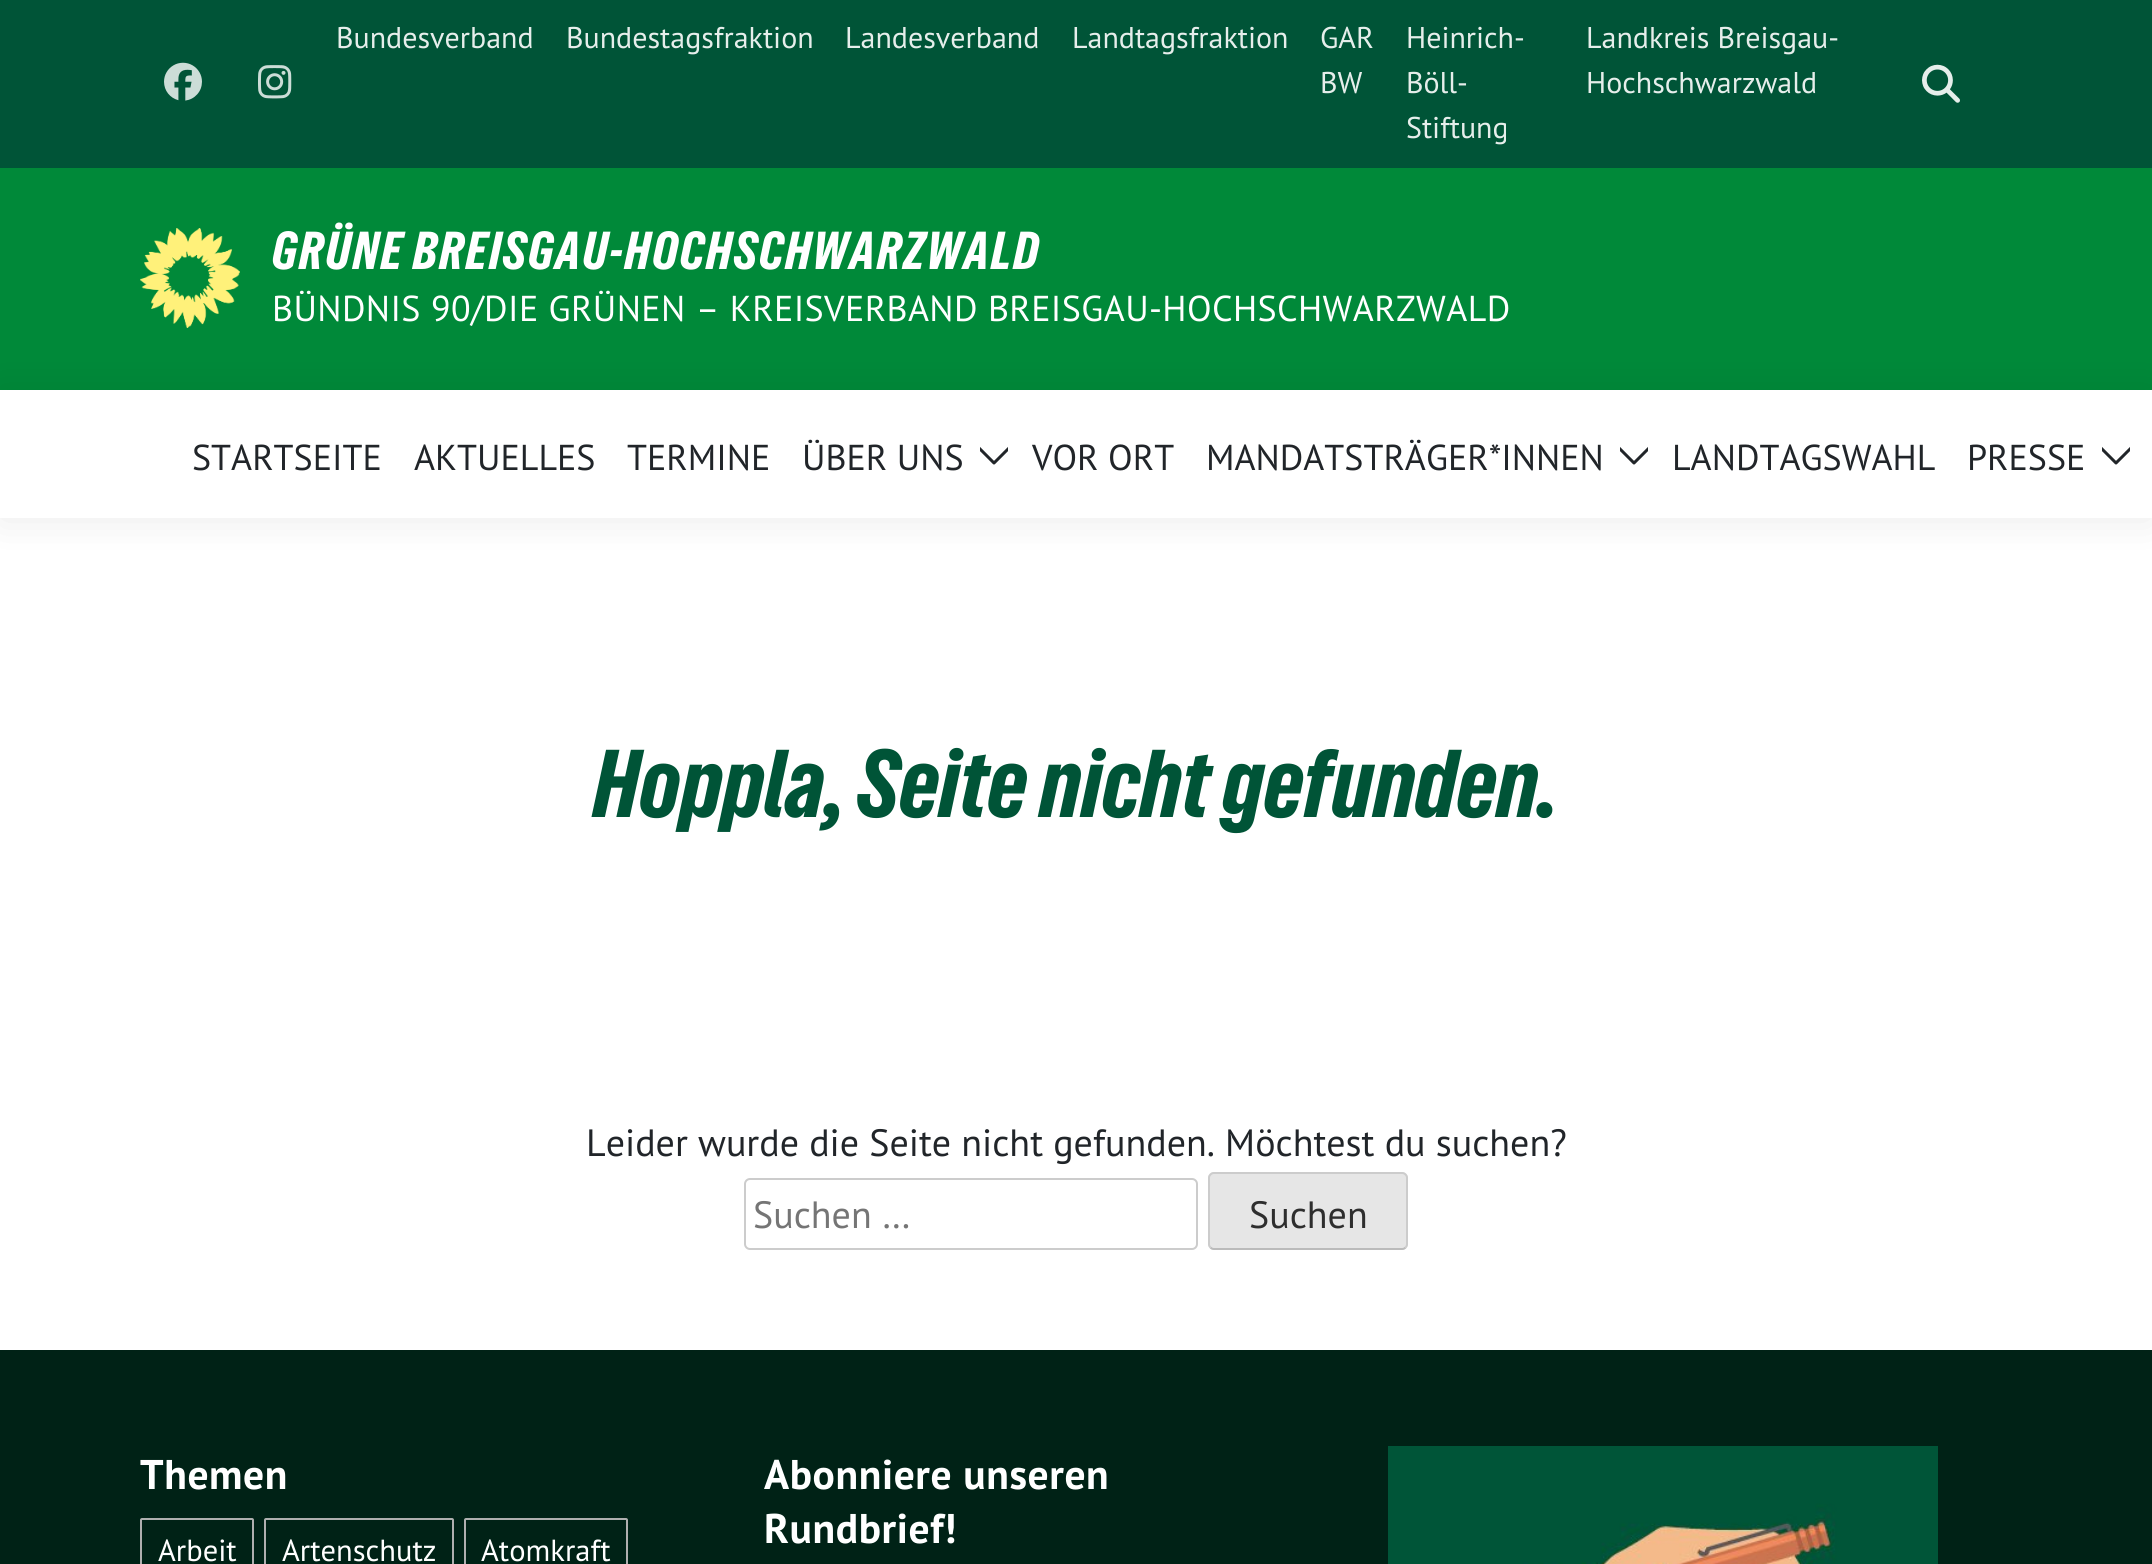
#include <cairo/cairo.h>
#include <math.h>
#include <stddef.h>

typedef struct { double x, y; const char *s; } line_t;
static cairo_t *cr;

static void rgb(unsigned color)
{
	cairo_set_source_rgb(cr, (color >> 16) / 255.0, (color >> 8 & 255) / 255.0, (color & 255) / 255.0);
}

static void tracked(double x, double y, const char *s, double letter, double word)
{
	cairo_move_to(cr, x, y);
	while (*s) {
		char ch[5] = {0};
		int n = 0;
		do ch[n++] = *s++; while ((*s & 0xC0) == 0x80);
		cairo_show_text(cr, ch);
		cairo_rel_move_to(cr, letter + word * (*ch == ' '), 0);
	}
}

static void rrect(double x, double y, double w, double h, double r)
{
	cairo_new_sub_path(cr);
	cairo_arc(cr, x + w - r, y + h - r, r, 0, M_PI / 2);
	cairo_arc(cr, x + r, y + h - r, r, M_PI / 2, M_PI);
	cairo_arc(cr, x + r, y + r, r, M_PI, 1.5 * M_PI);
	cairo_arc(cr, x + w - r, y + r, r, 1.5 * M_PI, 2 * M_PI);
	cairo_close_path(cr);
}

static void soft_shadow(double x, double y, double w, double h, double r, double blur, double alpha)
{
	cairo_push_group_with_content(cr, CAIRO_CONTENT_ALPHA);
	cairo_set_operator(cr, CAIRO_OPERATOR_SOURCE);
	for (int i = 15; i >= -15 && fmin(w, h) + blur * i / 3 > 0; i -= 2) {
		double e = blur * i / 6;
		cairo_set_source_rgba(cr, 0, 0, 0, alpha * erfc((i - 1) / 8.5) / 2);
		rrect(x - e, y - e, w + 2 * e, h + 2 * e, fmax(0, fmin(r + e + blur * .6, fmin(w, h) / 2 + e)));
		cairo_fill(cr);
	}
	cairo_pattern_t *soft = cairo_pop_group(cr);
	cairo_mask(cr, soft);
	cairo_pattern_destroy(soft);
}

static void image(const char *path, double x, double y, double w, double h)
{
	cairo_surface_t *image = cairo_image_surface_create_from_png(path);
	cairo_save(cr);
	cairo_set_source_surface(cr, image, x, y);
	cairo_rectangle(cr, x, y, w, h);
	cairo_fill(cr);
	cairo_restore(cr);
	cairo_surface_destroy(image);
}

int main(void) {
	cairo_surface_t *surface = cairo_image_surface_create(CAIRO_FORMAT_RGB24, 2152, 1564);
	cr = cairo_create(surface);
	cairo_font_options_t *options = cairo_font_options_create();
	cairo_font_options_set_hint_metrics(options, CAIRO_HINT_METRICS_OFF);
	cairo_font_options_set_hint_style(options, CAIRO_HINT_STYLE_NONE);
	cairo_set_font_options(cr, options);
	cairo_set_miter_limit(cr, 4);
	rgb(0xffffff);
	cairo_paint(cr);
	rgb(0x005437);
	cairo_rectangle(cr, 0, 0, 2152, 168);
	cairo_fill(cr);
	image("img/1.png", 164, 62, 38, 39);
	image("img/2.png", 258, 65, 34, 34);
	image("img/3.png", 1922, 64, 38, 39);
	rgb(0x008939);
	cairo_rectangle(cr, 0, 168, 2152, 222);
	cairo_fill(cr);
	image("img/4.png", 140, 228, 100, 100);
	cairo_save(cr);
	cairo_set_fill_rule(cr, CAIRO_FILL_RULE_EVEN_ODD);
	cairo_new_path(cr);
	cairo_move_to(cr, 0, 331);
	cairo_line_to(cr, 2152, 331);
	cairo_line_to(cr, 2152, 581);
	cairo_line_to(cr, 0, 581);
	cairo_close_path(cr);
	cairo_move_to(cr, 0, 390);
	cairo_line_to(cr, 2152, 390);
	cairo_line_to(cr, 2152, 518);
	cairo_line_to(cr, 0, 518);
	cairo_close_path(cr);
	cairo_clip(cr);
	rgb(0x000000);
	soft_shadow(0, 392, 2152, 128, 0, 20, 0.08);
	cairo_restore(cr);
	cairo_save(cr);
	cairo_rectangle(cr, 980, 430, 28, 48);
	cairo_clip(cr);
	cairo_new_path(cr);
	cairo_move_to(cr, 976, 445);
	cairo_line_to(cr, 994, 463);
	cairo_line_to(cr, 1012, 445);
	rgb(0x212529);
	cairo_set_line_width(cr, 3);
	cairo_set_line_cap(cr, CAIRO_LINE_CAP_ROUND);
	cairo_set_line_join(cr, CAIRO_LINE_JOIN_ROUND);
	cairo_stroke(cr);
	cairo_restore(cr);
	cairo_save(cr);
	cairo_rectangle(cr, 1620, 430, 28, 48);
	cairo_clip(cr);
	cairo_new_path(cr);
	cairo_move_to(cr, 1616, 445);
	cairo_line_to(cr, 1634, 463);
	cairo_line_to(cr, 1652, 445);
	rgb(0x212529);
	cairo_set_line_width(cr, 3);
	cairo_set_line_cap(cr, CAIRO_LINE_CAP_ROUND);
	cairo_set_line_join(cr, CAIRO_LINE_JOIN_ROUND);
	cairo_stroke(cr);
	cairo_restore(cr);
	cairo_save(cr);
	cairo_rectangle(cr, 2102, 430, 28, 48);
	cairo_clip(cr);
	cairo_new_path(cr);
	cairo_move_to(cr, 2098, 445);
	cairo_line_to(cr, 2116, 463);
	cairo_line_to(cr, 2134, 445);
	rgb(0x212529);
	cairo_set_line_width(cr, 3);
	cairo_set_line_cap(cr, CAIRO_LINE_CAP_ROUND);
	cairo_set_line_join(cr, CAIRO_LINE_JOIN_ROUND);
	cairo_stroke(cr);
	cairo_restore(cr);
	rrect(745, 1179, 452, 70, 5);
	rgb(0xcccccc);
	cairo_stroke(cr);
	rgb(0xe6e6e6);
	rrect(1208, 1172, 200, 78, 6);
	cairo_fill(cr);
	cairo_new_path(cr);
	cairo_move_to(cr, 1405.5, 1247.5);
	cairo_curve_to(cr, 1404.5, 1248.5, 1403.5, 1249, 1402, 1249);
	cairo_line_to(cr, 1214, 1249);
	cairo_curve_to(cr, 1212.5, 1249, 1211.5, 1248.5, 1210.5, 1247.5);
	rgb(0xbbbbbb);
	cairo_stroke(cr);
	cairo_new_path(cr);
	cairo_move_to(cr, 1210.5, 1247.5);
	cairo_curve_to(cr, 1209.5, 1246.5, 1209, 1245.5, 1209, 1244);
	cairo_line_to(cr, 1209, 1178);
	cairo_curve_to(cr, 1209, 1176.5, 1209.5, 1175.5, 1210.5, 1174.5);
	cairo_curve_to(cr, 1211.5, 1173.5, 1212.5, 1173, 1214, 1173);
	cairo_line_to(cr, 1402, 1173);
	cairo_curve_to(cr, 1403.5, 1173, 1404.5, 1173.5, 1405.5, 1174.5);
	cairo_curve_to(cr, 1406.5, 1175.5, 1407, 1176.5, 1407, 1178);
	cairo_line_to(cr, 1407, 1244);
	cairo_curve_to(cr, 1407, 1245.5, 1406.5, 1246.5, 1405.5, 1247.5);
	rgb(0xcccccc);
	cairo_stroke(cr);
	rgb(0x002216);
	cairo_rectangle(cr, 0, 1350, 2152, 214);
	cairo_fill(cr);
	rrect(141, 1519, 112, 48, 1);
	rgb(0xafafaf);
	cairo_stroke(cr);
	rrect(265, 1519, 188, 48, 1);
	cairo_stroke(cr);
	rrect(465, 1519, 162, 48, 1);
	cairo_stroke(cr);
	image("img/5.png", 1388, 1446, 550, 118);
	cairo_select_font_face(cr, "PT Sans", CAIRO_FONT_SLANT_NORMAL, CAIRO_FONT_WEIGHT_NORMAL);
	cairo_set_font_size(cr, 30);
	rgb(0xe6eeeb);
	{
		static const line_t items[] = {
			{336, 48, "Bundesverband"},
			{566, 48, "Bundestagsfraktion"},
			{845, 48, "Landesverband"},
			{1072, 48, "Landtagsfraktion"},
			{1320, 48, "GAR"},
			{1320, 93, "BW"},
			{1406, 48, "Heinrich-"},
			{1406, 93, "Böll-"},
			{1406, 138, "Stiftung"},
			{1586, 48, "Landkreis Breisgau-"},
			{1586, 93, "Hochschwarzwald"},
		};
		for (size_t i = 0; i < sizeof items / sizeof *items; i++) {
			cairo_move_to(cr, items[i].x, items[i].y);
			cairo_show_text(cr, items[i].s);
		}
	}
	cairo_select_font_face(cr, "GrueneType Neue", CAIRO_FONT_SLANT_NORMAL, CAIRO_FONT_WEIGHT_NORMAL);
	cairo_set_font_size(cr, 50);
	rgb(0xffffff);
	tracked(272, 269, "GRÜNE BREISGAU-HOCHSCHWARZWALD", 2, 0);
	cairo_select_font_face(cr, "PT Sans", CAIRO_FONT_SLANT_NORMAL, CAIRO_FONT_WEIGHT_NORMAL);
	cairo_set_font_size(cr, 36);
	tracked(272, 321, "BÜNDNIS 90/DIE GRÜNEN – KREISVERBAND BREISGAU-HOCHSCHWARZWALD", 0.4, 0);
	rgb(0x212529);
	{
		static const line_t items[] = {
			{192, 470, "STARTSEITE"},
			{414, 470, "AKTUELLES"},
			{627, 470, "TERMINE"},
			{802, 470, "ÜBER UNS"},
			{1032, 470, "VOR ORT"},
			{1206, 470, "MANDATSTRÄGER*INNEN"},
			{1672, 470, "LANDTAGSWAHL"},
			{1967, 470, "PRESSE"},
		};
		for (size_t i = 0; i < sizeof items / sizeof *items; i++) {
			cairo_move_to(cr, items[i].x, items[i].y);
			cairo_show_text(cr, items[i].s);
		}
	}
	cairo_select_font_face(cr, "GrueneType Neue", CAIRO_FONT_SLANT_NORMAL, CAIRO_FONT_WEIGHT_NORMAL);
	cairo_set_font_size(cr, 90);
	rgb(0x005437);
	cairo_move_to(cr, 593, 817);
	cairo_show_text(cr, "Hoppla, Seite nicht gefunden.");
	cairo_select_font_face(cr, "PT Sans", CAIRO_FONT_SLANT_NORMAL, CAIRO_FONT_WEIGHT_NORMAL);
	cairo_set_font_size(cr, 38);
	rgb(0x212529);
	cairo_move_to(cr, 586, 1156);
	cairo_show_text(cr, "Leider wurde die Seite nicht gefunden. Möchtest du suchen?");
	rgb(0x757575);
	cairo_move_to(cr, 753, 1228);
	cairo_show_text(cr, "Suchen …");
	rgb(0x2e2e2e);
	cairo_move_to(cr, 1249, 1228);
	cairo_show_text(cr, "Suchen");
	cairo_select_font_face(cr, "PT Sans", CAIRO_FONT_SLANT_NORMAL, CAIRO_FONT_WEIGHT_BOLD);
	cairo_set_font_size(cr, 41.5);
	rgb(0xffffff);
	tracked(140, 1489, "Themen", 0.6, 0);
	cairo_select_font_face(cr, "PT Sans", CAIRO_FONT_SLANT_NORMAL, CAIRO_FONT_WEIGHT_NORMAL);
	cairo_set_font_size(cr, 30.5);
	{
		static const line_t items[] = {
			{158, 1561, "Arbeit"},
			{282, 1561, "Artenschutz"},
			{481, 1561, "Atomkraft"},
		};
		for (size_t i = 0; i < sizeof items / sizeof *items; i++) {
			cairo_move_to(cr, items[i].x, items[i].y);
			cairo_show_text(cr, items[i].s);
		}
	}
	cairo_select_font_face(cr, "PT Sans", CAIRO_FONT_SLANT_NORMAL, CAIRO_FONT_WEIGHT_BOLD);
	cairo_set_font_size(cr, 41.5);
	tracked(764, 1489, "Abonniere unseren", 0.6, 0);
	tracked(764, 1543, "Rundbrief!", 0.6, 0);
	cairo_surface_write_to_png(surface, "page.png");
	cairo_font_options_destroy(options);
	cairo_destroy(cr);
	cairo_surface_destroy(surface);
	return 0;
}
